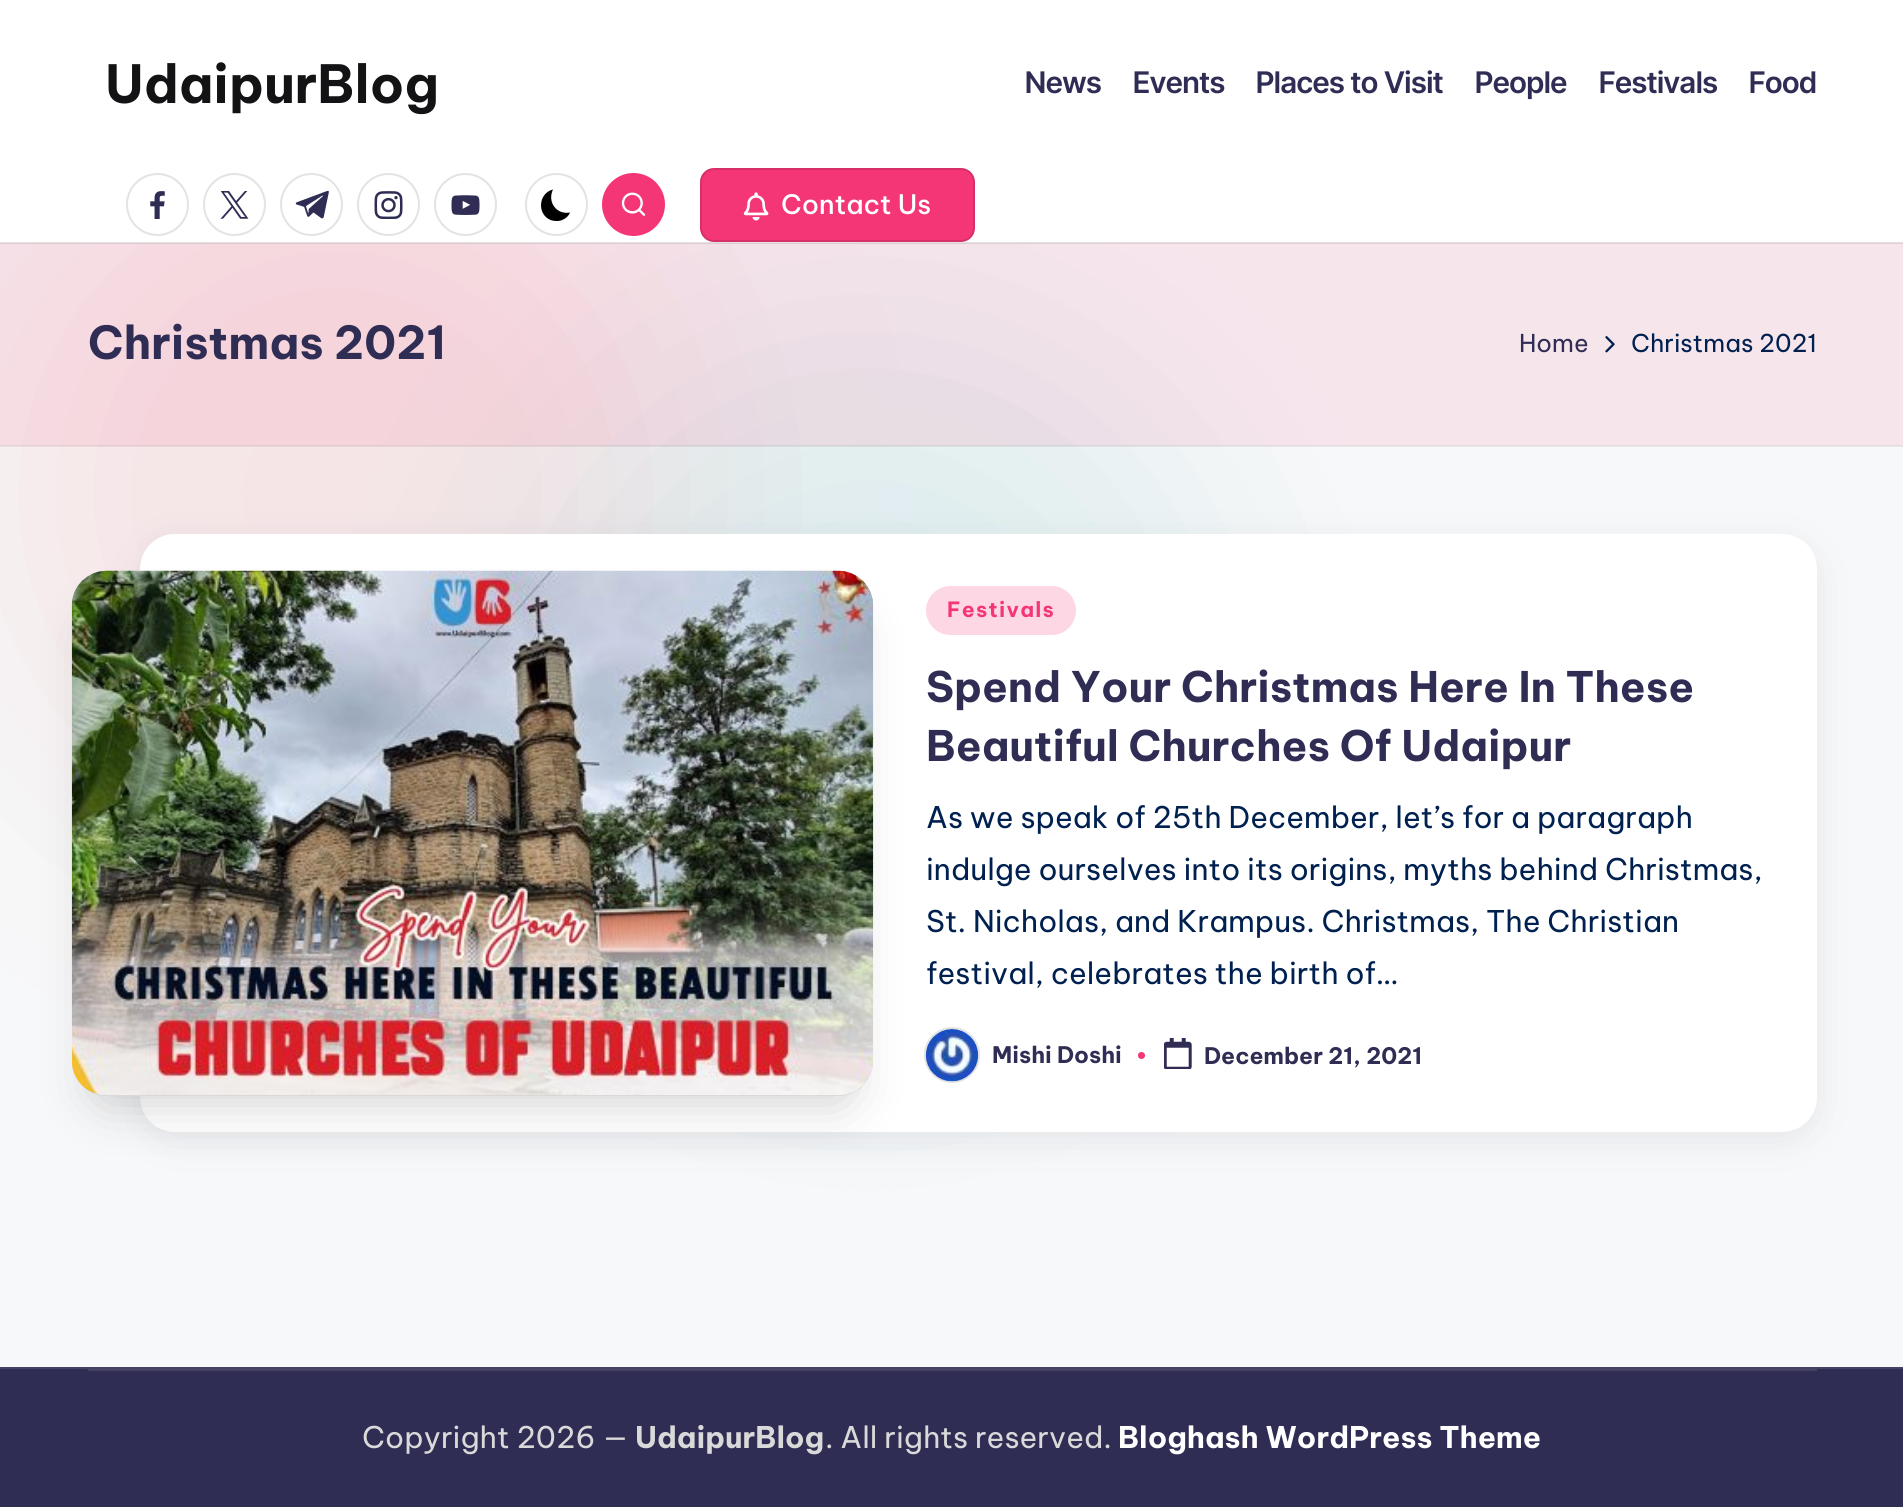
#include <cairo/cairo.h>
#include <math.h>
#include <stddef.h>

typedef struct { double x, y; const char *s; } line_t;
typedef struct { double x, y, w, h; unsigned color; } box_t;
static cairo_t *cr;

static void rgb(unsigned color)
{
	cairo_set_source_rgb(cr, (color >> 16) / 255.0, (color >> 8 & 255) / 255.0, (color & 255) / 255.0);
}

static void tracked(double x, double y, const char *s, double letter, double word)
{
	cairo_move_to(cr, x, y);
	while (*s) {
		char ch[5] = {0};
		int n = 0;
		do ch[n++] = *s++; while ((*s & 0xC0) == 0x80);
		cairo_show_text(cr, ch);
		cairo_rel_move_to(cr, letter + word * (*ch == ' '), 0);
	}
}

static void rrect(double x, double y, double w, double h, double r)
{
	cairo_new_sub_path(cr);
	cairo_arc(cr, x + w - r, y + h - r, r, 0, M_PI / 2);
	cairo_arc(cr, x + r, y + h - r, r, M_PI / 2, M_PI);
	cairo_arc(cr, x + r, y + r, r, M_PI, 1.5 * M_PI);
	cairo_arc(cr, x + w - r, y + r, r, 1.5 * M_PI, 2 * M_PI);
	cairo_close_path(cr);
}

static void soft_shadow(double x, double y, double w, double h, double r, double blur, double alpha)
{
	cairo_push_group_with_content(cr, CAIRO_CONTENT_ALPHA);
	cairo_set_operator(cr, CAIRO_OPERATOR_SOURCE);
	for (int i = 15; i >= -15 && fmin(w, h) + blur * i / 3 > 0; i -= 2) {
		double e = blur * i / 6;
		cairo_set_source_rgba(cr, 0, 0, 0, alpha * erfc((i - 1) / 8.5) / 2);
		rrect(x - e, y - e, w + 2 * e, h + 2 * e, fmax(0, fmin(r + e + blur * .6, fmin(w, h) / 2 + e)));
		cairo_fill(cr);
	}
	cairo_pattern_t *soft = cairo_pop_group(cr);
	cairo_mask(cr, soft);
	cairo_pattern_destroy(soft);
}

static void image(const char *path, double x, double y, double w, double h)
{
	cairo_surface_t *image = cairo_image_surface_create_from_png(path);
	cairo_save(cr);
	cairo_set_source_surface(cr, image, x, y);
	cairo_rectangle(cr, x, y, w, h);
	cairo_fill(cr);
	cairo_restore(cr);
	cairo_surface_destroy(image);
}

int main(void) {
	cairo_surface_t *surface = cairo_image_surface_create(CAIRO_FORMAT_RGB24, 1903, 1507);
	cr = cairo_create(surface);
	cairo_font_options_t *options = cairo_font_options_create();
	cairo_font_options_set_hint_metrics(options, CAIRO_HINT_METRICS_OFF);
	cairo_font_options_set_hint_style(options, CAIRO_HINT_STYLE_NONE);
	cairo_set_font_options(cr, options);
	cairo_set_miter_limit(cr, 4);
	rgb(0xf7f8f9);
	cairo_paint(cr);
	rgb(0xf5e5e7);
	soft_shadow(0, 158, 672, 672, 336, 112, 1);
	rgb(0x04868b);
	soft_shadow(532, 350, 672, 672, 336, 112, 0.1);
	rgb(0xffffff);
	cairo_rectangle(cr, 0, 0, 1903, 243);
	cairo_fill(cr);
	cairo_set_source_rgba(cr, 0.725, 0.725, 0.725, 0.4);
	cairo_rectangle(cr, 0, 242, 1903, 2);
	cairo_fill(cr);
	cairo_arc(cr, 157.5, 204.5, 30.5, 0, 2 * M_PI);
	rgb(0xe3e3e3);
	cairo_stroke(cr);
	image("img/1.png", 150, 191, 15, 28);
	cairo_arc(cr, 234.5, 204.5, 30.5, 0, 2 * M_PI);
	cairo_stroke(cr);
	image("img/2.png", 220, 191, 29, 28);
	cairo_arc(cr, 311.5, 204.5, 30.5, 0, 2 * M_PI);
	cairo_stroke(cr);
	image("img/3.png", 295, 191, 34, 28);
	cairo_arc(cr, 388.5, 204.5, 30.5, 0, 2 * M_PI);
	cairo_stroke(cr);
	image("img/4.png", 374, 191, 29, 28);
	cairo_arc(cr, 465.5, 204.5, 30.5, 0, 2 * M_PI);
	cairo_stroke(cr);
	image("img/5.png", 451, 195, 29, 20);
	cairo_arc(cr, 556.5, 204.5, 30.5, 0, 2 * M_PI);
	cairo_stroke(cr);
	rgb(0x000000);
	cairo_new_path(cr);
	cairo_move_to(cr, 570, 212.5);
	cairo_curve_to(cr, 556.5, 215, 547, 202, 553, 189.5);
	cairo_curve_to(cr, 538.5, 193, 536.5, 214, 550.5, 220);
	cairo_curve_to(cr, 553.5, 221, 557.5, 221.5, 561, 220.5);
	cairo_curve_to(cr, 565, 219, 568.5, 216.5, 570, 212.5);
	cairo_close_path(cr);
	cairo_fill(cr);
	rgb(0xf43676);
	cairo_arc(cr, 633.5, 204.5, 31.5, 0, 2 * M_PI);
	cairo_fill(cr);
	image("img/6.png", 621, 192, 25, 24);
	rrect(700, 168, 275, 74, 14);
	cairo_fill(cr);
	rrect(701, 169, 273, 72, 13);
	cairo_set_source_rgba(cr, 0, 0, 0, 0.12);
	cairo_stroke(cr);
	image("img/7.png", 743, 192, 26, 29);
	cairo_set_source_rgba(cr, 0.957, 0.212, 0.463, 0.1);
	cairo_rectangle(cr, 0, 243, 1903, 203);
	cairo_fill(cr);
	cairo_set_source_rgba(cr, 0, 0, 0, 0.06);
	cairo_rectangle(cr, 0, 445, 1903, 2);
	cairo_fill(cr);
	image("img/8.png", 1605, 336, 10, 17);
	rgb(0x454360);
	soft_shadow(140, 543, 1677, 598, 35, 17.5, 0.1);
	rgb(0xffffff);
	rrect(140, 534, 1677, 598, 35);
	cairo_fill(cr);
	rgb(0xfdd7e4);
	rrect(926, 586, 150, 49, 24.5);
	cairo_fill(cr);
	image("img/10.png", 925, 1029, 54, 53);
	cairo_arc(cr, 952, 1055, 27, 0, 2 * M_PI);
	cairo_set_source_rgba(cr, 0.725, 0.725, 0.725, 0.4);
	cairo_stroke(cr);
	rgb(0x000000);
	soft_shadow(93, 620, 759, 483, 14, 24.5, 0.18);
	rgb(0xd1d1d1);
	rrect(72, 571, 801, 525, 35);
	cairo_fill(cr);
	image("img/9.png", 71, 570, 803, 526);
	rgb(0xf43676);
	cairo_arc(cr, 1141.5, 1055.5, 3.5, 0, 2 * M_PI);
	cairo_fill(cr);
	image("img/11.png", 1164, 1038, 28, 31);
	{
		static const box_t items[] = {
			{0, 1369, 1903, 138, 0x302d55},
			{0, 1367, 1903, 2, 0x454266},
			{88, 1369, 1729, 2, 0x454266},
		};
		for (size_t i = 0; i < sizeof items / sizeof *items; i++) {
			rgb(items[i].color);
			cairo_rectangle(cr, items[i].x, items[i].y, items[i].w, items[i].h);
			cairo_fill(cr);
		}
	}
	cairo_select_font_face(cr, "Be Vietnam Pro", CAIRO_FONT_SLANT_NORMAL, CAIRO_FONT_WEIGHT_BOLD);
	cairo_set_font_size(cr, 52.5);
	rgb(0x131315);
	cairo_move_to(cr, 105, 103);
	cairo_show_text(cr, "UdaipurBlog");
	cairo_select_font_face(cr, "Inter Tight SemiBold", CAIRO_FONT_SLANT_NORMAL, CAIRO_FONT_WEIGHT_NORMAL);
	cairo_set_font_size(cr, 29.75);
	rgb(0x302d55);
	{
		static const line_t items[] = {
			{1025, 93, "News"},
			{1133, 93, "Events"},
			{1256, 93, "Places to Visit"},
			{1475, 93, "People"},
			{1599, 93, "Festivals"},
			{1749, 93, "Food"},
		};
		for (size_t i = 0; i < sizeof items / sizeof *items; i++) {
			cairo_move_to(cr, items[i].x, items[i].y);
			cairo_show_text(cr, items[i].s);
		}
	}
	cairo_select_font_face(cr, "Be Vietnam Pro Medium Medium", CAIRO_FONT_SLANT_NORMAL, CAIRO_FONT_WEIGHT_NORMAL);
	cairo_set_font_size(cr, 26.75);
	rgb(0xffffff);
	cairo_move_to(cr, 781, 214);
	cairo_show_text(cr, "Contact Us");
	cairo_select_font_face(cr, "Be Vietnam Pro", CAIRO_FONT_SLANT_NORMAL, CAIRO_FONT_WEIGHT_BOLD);
	cairo_set_font_size(cr, 45.5);
	rgb(0x302d55);
	cairo_move_to(cr, 88, 359);
	cairo_show_text(cr, "Christmas 2021");
	cairo_select_font_face(cr, "Be Vietnam Pro", CAIRO_FONT_SLANT_NORMAL, CAIRO_FONT_WEIGHT_NORMAL);
	cairo_set_font_size(cr, 24.5);
	cairo_move_to(cr, 1519, 352);
	cairo_show_text(cr, "Home");
	rgb(0x002050);
	cairo_move_to(cr, 1631, 352);
	cairo_show_text(cr, "Christmas 2021");
	cairo_select_font_face(cr, "Be Vietnam Pro", CAIRO_FONT_SLANT_NORMAL, CAIRO_FONT_WEIGHT_BOLD);
	cairo_set_font_size(cr, 21);
	rgb(0xf43676);
	tracked(947, 617, "Festivals", 1.25, 0);
	cairo_set_font_size(cr, 42);
	rgb(0x302d55);
	cairo_move_to(cr, 926, 702);
	cairo_show_text(cr, "Spend Your Christmas Here In These");
	cairo_move_to(cr, 926, 761);
	cairo_show_text(cr, "Beautiful Churches Of Udaipur");
	cairo_select_font_face(cr, "Be Vietnam Pro", CAIRO_FONT_SLANT_NORMAL, CAIRO_FONT_WEIGHT_NORMAL);
	cairo_set_font_size(cr, 29.75);
	rgb(0x002050);
	{
		static const line_t items[] = {
			{926, 828, "As we speak of 25th December, let’s for a paragraph"},
			{926, 880, "indulge ourselves into its origins, myths behind Christmas,"},
			{926, 932, "St. Nicholas, and Krampus. Christmas, The Christian"},
			{926, 984, "festival, celebrates the birth of…"},
		};
		for (size_t i = 0; i < sizeof items / sizeof *items; i++) {
			cairo_move_to(cr, items[i].x, items[i].y);
			cairo_show_text(cr, items[i].s);
		}
	}
	cairo_select_font_face(cr, "Be Vietnam Pro", CAIRO_FONT_SLANT_NORMAL, CAIRO_FONT_WEIGHT_BOLD);
	cairo_set_font_size(cr, 22.75);
	rgb(0x302d55);
	cairo_move_to(cr, 992, 1063);
	cairo_show_text(cr, "Mishi Doshi");
	cairo_move_to(cr, 1204, 1064);
	cairo_show_text(cr, "December 21, 2021");
	cairo_select_font_face(cr, "Be Vietnam Pro", CAIRO_FONT_SLANT_NORMAL, CAIRO_FONT_WEIGHT_NORMAL);
	cairo_set_font_size(cr, 29.75);
	rgb(0xd9d9d9);
	cairo_move_to(cr, 362, 1448);
	cairo_show_text(cr, "Copyright 2026 —");
	cairo_select_font_face(cr, "Be Vietnam Pro", CAIRO_FONT_SLANT_NORMAL, CAIRO_FONT_WEIGHT_BOLD);
	cairo_move_to(cr, 635, 1448);
	cairo_show_text(cr, "UdaipurBlog");
	cairo_select_font_face(cr, "Be Vietnam Pro", CAIRO_FONT_SLANT_NORMAL, CAIRO_FONT_WEIGHT_NORMAL);
	cairo_move_to(cr, 825, 1448);
	cairo_show_text(cr, ". All rights reserved.");
	cairo_select_font_face(cr, "Be Vietnam Pro", CAIRO_FONT_SLANT_NORMAL, CAIRO_FONT_WEIGHT_BOLD);
	rgb(0xffffff);
	cairo_move_to(cr, 1118, 1448);
	cairo_show_text(cr, "Bloghash WordPress Theme");
	cairo_surface_write_to_png(surface, "page.png");
	cairo_font_options_destroy(options);
	cairo_destroy(cr);
	cairo_surface_destroy(surface);
	return 0;
}
